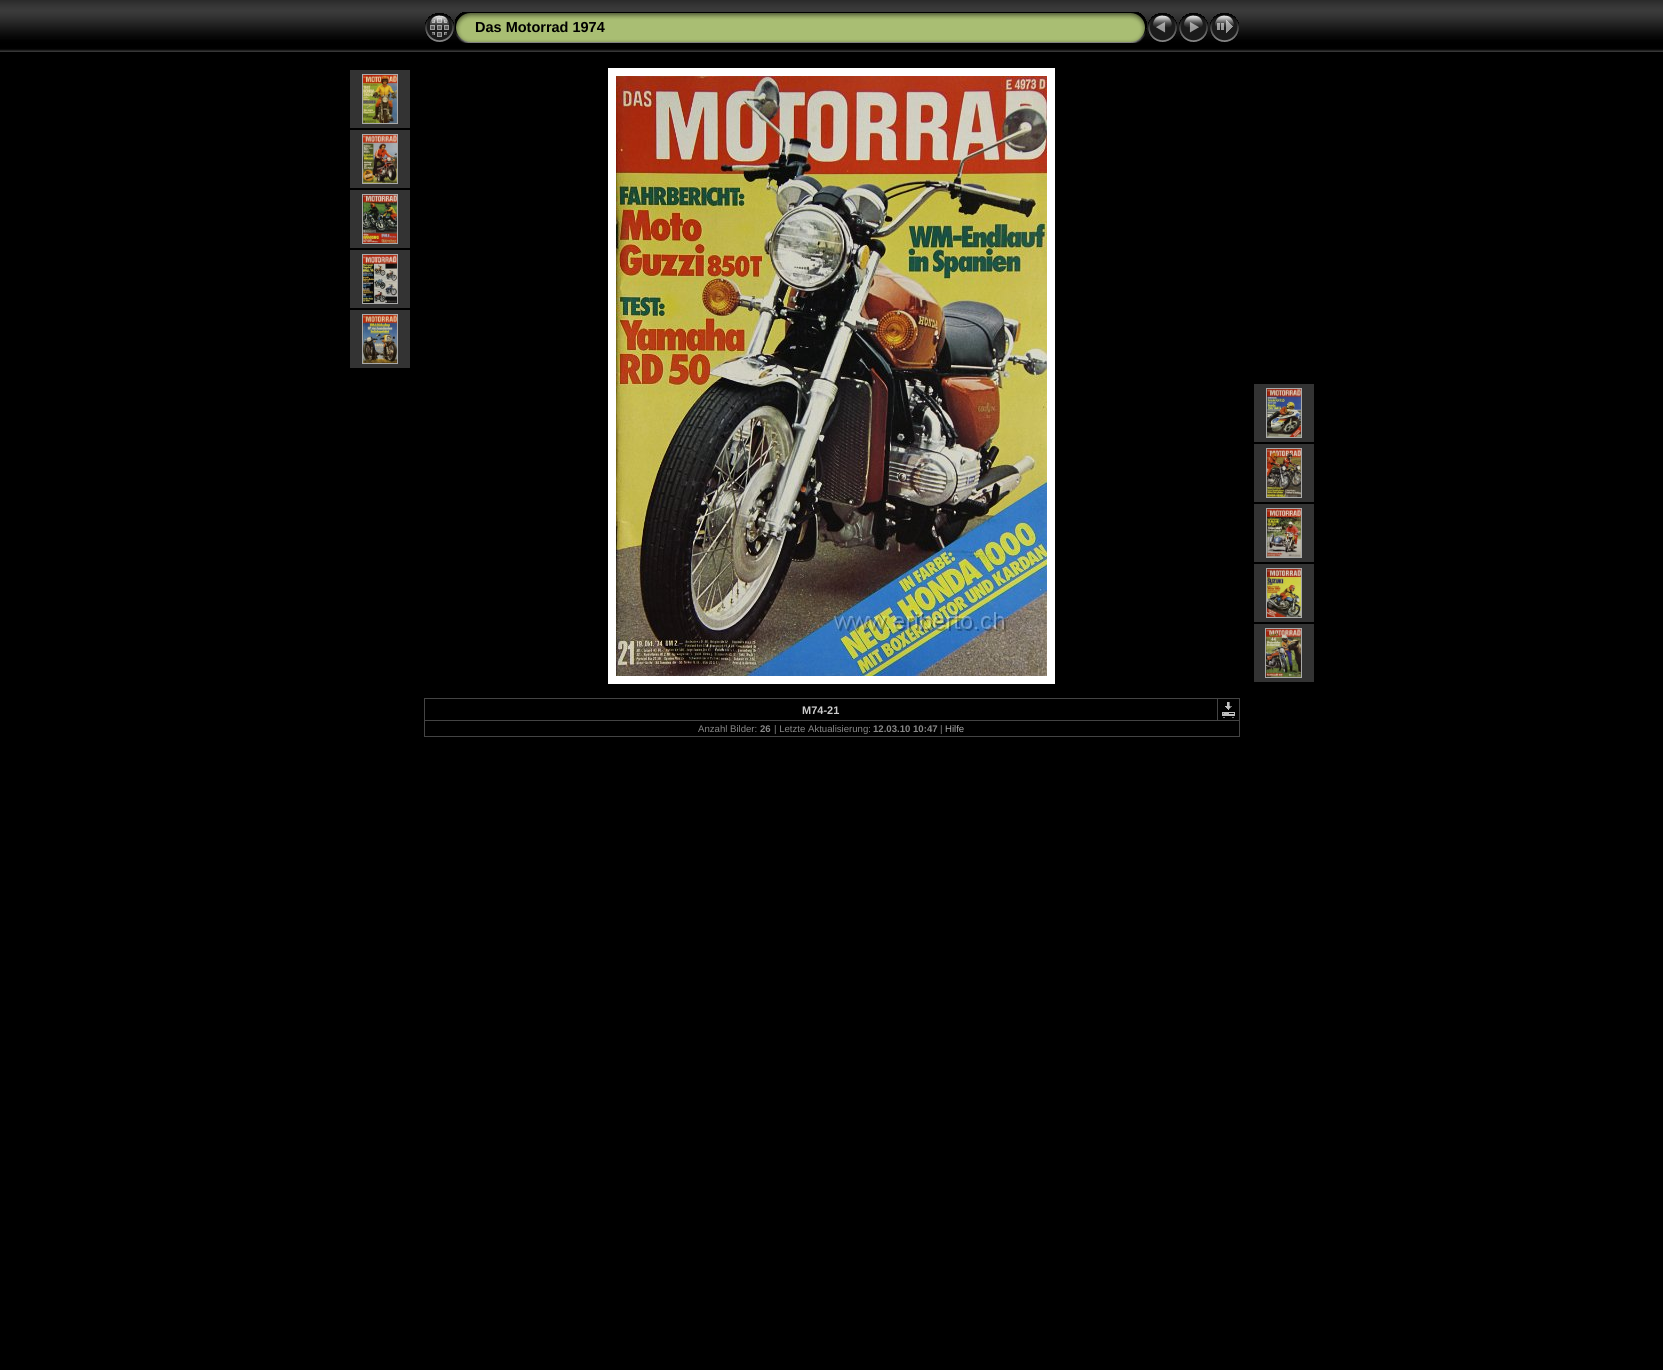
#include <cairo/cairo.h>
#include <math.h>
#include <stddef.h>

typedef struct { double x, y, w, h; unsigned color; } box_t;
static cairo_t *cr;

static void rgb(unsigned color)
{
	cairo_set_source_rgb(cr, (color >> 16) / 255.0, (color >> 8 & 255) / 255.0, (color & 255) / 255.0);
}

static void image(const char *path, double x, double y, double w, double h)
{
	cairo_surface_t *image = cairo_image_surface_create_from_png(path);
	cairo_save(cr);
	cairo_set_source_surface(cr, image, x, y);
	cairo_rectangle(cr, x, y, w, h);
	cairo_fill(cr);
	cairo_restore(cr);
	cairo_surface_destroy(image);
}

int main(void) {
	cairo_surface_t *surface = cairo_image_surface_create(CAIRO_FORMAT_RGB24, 1663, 1370);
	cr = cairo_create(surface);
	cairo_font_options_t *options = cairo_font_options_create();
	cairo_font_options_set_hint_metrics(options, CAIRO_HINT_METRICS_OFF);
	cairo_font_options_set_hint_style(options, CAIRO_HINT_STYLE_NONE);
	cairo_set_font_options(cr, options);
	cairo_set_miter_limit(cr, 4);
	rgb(0x000000);
	cairo_paint(cr);
	image("img/1.png", 0, 0, 1663, 52);
	image("img/2.png", 425, 13, 29, 29);
	image("img/3.png", 455, 12, 20, 31);
	image("img/4.png", 475, 12, 652, 31);
	image("img/5.png", 1127, 12, 20, 31);
	image("img/6.png", 1148, 13, 29, 29);
	image("img/7.png", 1179, 13, 29, 29);
	image("img/8.png", 1210, 13, 29, 29);
	rgb(0x333333);
	cairo_rectangle(cr, 350, 70, 60, 58);
	cairo_fill(cr);
	cairo_rectangle(cr, 362.5, 74.5, 35, 49);
	rgb(0xaaaaaa);
	cairo_set_line_width(cr, 1);
	cairo_stroke(cr);
	image("img/9.png", 363, 75, 34, 48);
	rgb(0x333333);
	cairo_rectangle(cr, 350, 130, 60, 58);
	cairo_fill(cr);
	cairo_rectangle(cr, 362.5, 134.5, 35, 49);
	rgb(0xaaaaaa);
	cairo_stroke(cr);
	image("img/10.png", 363, 135, 34, 48);
	rgb(0x333333);
	cairo_rectangle(cr, 350, 190, 60, 58);
	cairo_fill(cr);
	cairo_rectangle(cr, 362.5, 194.5, 35, 49);
	rgb(0xaaaaaa);
	cairo_stroke(cr);
	image("img/11.png", 363, 195, 34, 48);
	rgb(0x333333);
	cairo_rectangle(cr, 350, 250, 60, 58);
	cairo_fill(cr);
	cairo_rectangle(cr, 362.5, 254.5, 35, 49);
	rgb(0xaaaaaa);
	cairo_stroke(cr);
	image("img/12.png", 363, 255, 34, 48);
	rgb(0x333333);
	cairo_rectangle(cr, 350, 310, 60, 58);
	cairo_fill(cr);
	cairo_rectangle(cr, 362.5, 314.5, 35, 49);
	rgb(0xaaaaaa);
	cairo_stroke(cr);
	image("img/13.png", 363, 315, 34, 48);
	cairo_rectangle(cr, 612, 72, 439, 608);
	rgb(0xffffff);
	cairo_set_line_width(cr, 8);
	cairo_stroke(cr);
	image("img/14.png", 616, 76, 431, 600);
	rgb(0x333333);
	cairo_rectangle(cr, 1254, 384, 60, 58);
	cairo_fill(cr);
	cairo_rectangle(cr, 1266.5, 388.5, 35, 49);
	rgb(0xaaaaaa);
	cairo_set_line_width(cr, 1);
	cairo_stroke(cr);
	image("img/15.png", 1267, 389, 34, 48);
	rgb(0x333333);
	cairo_rectangle(cr, 1254, 444, 60, 58);
	cairo_fill(cr);
	cairo_rectangle(cr, 1266.5, 448.5, 35, 49);
	rgb(0xaaaaaa);
	cairo_stroke(cr);
	image("img/16.png", 1267, 449, 34, 48);
	rgb(0x333333);
	cairo_rectangle(cr, 1254, 504, 60, 58);
	cairo_fill(cr);
	cairo_rectangle(cr, 1266.5, 508.5, 35, 49);
	rgb(0xaaaaaa);
	cairo_stroke(cr);
	image("img/17.png", 1267, 509, 34, 48);
	rgb(0x333333);
	cairo_rectangle(cr, 1254, 564, 60, 58);
	cairo_fill(cr);
	cairo_rectangle(cr, 1266.5, 568.5, 35, 49);
	rgb(0xaaaaaa);
	cairo_stroke(cr);
	image("img/18.png", 1267, 569, 34, 48);
	rgb(0x333333);
	cairo_rectangle(cr, 1254, 624, 60, 58);
	cairo_fill(cr);
	cairo_rectangle(cr, 1265.5, 628.5, 36, 49);
	rgb(0xaaaaaa);
	cairo_stroke(cr);
	image("img/19.png", 1266, 629, 35, 48);
	{
		static const box_t items[] = {
			{424, 698, 816, 1, 0x444444},
			{1239, 698, 1, 39, 0x444444},
			{424, 736, 816, 1, 0x444444},
			{424, 698, 1, 39, 0x444444},
			{424, 720, 816, 1, 0x444444},
			{1217, 698, 1, 23, 0x444444},
		};
		for (size_t i = 0; i < sizeof items / sizeof *items; i++) {
			rgb(items[i].color);
			cairo_rectangle(cr, items[i].x, items[i].y, items[i].w, items[i].h);
			cairo_fill(cr);
		}
	}
	image("img/20.png", 1222, 702, 13, 16);
	cairo_select_font_face(cr, "Liberation Sans", CAIRO_FONT_SLANT_NORMAL, CAIRO_FONT_WEIGHT_BOLD);
	cairo_set_font_size(cr, 14.5);
	rgb(0x000000);
	cairo_move_to(cr, 475, 32);
	cairo_show_text(cr, "Das Motorrad 1974");
	cairo_set_font_size(cr, 11);
	rgb(0xcccccc);
	cairo_move_to(cr, 802, 714);
	cairo_show_text(cr, "M74-21");
	cairo_select_font_face(cr, "Liberation Sans", CAIRO_FONT_SLANT_NORMAL, CAIRO_FONT_WEIGHT_NORMAL);
	cairo_set_font_size(cr, 9.6);
	rgb(0x888888);
	cairo_move_to(cr, 698, 732);
	cairo_show_text(cr, "Anzahl Bilder:");
	cairo_select_font_face(cr, "Liberation Sans", CAIRO_FONT_SLANT_NORMAL, CAIRO_FONT_WEIGHT_BOLD);
	cairo_move_to(cr, 760, 732);
	cairo_show_text(cr, "26");
	cairo_select_font_face(cr, "Liberation Sans", CAIRO_FONT_SLANT_NORMAL, CAIRO_FONT_WEIGHT_NORMAL);
	cairo_move_to(cr, 774, 732);
	cairo_show_text(cr, "| Letzte Aktualisierung:");
	cairo_select_font_face(cr, "Liberation Sans", CAIRO_FONT_SLANT_NORMAL, CAIRO_FONT_WEIGHT_BOLD);
	cairo_move_to(cr, 873, 732);
	cairo_show_text(cr, "12.03.10 10:47");
	cairo_select_font_face(cr, "Liberation Sans", CAIRO_FONT_SLANT_NORMAL, CAIRO_FONT_WEIGHT_NORMAL);
	cairo_move_to(cr, 940, 732);
	cairo_show_text(cr, "|");
	rgb(0xaaaaaa);
	cairo_move_to(cr, 945, 732);
	cairo_show_text(cr, "Hilfe");
	cairo_surface_write_to_png(surface, "page.png");
	cairo_font_options_destroy(options);
	cairo_destroy(cr);
	cairo_surface_destroy(surface);
	return 0;
}
